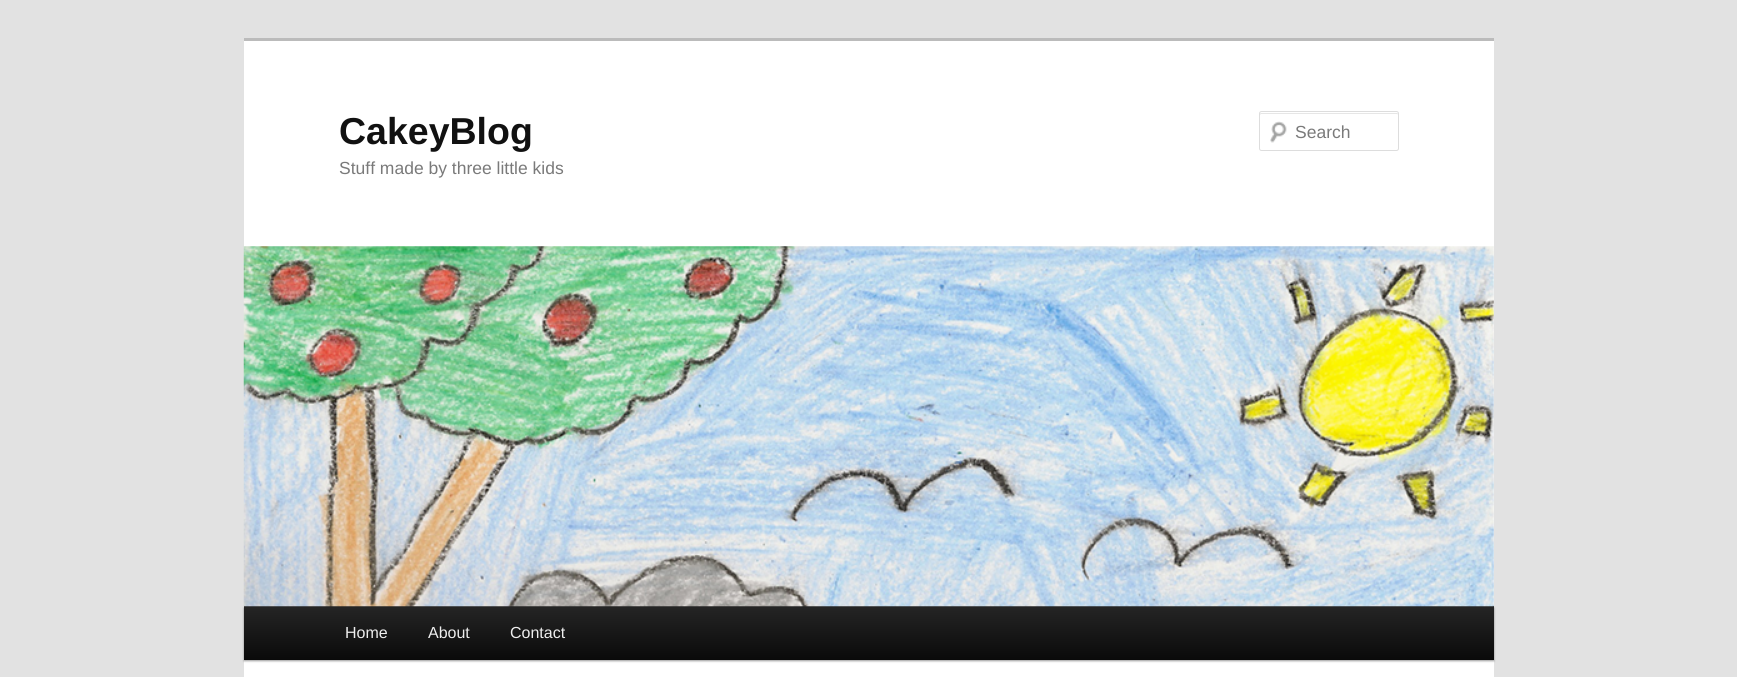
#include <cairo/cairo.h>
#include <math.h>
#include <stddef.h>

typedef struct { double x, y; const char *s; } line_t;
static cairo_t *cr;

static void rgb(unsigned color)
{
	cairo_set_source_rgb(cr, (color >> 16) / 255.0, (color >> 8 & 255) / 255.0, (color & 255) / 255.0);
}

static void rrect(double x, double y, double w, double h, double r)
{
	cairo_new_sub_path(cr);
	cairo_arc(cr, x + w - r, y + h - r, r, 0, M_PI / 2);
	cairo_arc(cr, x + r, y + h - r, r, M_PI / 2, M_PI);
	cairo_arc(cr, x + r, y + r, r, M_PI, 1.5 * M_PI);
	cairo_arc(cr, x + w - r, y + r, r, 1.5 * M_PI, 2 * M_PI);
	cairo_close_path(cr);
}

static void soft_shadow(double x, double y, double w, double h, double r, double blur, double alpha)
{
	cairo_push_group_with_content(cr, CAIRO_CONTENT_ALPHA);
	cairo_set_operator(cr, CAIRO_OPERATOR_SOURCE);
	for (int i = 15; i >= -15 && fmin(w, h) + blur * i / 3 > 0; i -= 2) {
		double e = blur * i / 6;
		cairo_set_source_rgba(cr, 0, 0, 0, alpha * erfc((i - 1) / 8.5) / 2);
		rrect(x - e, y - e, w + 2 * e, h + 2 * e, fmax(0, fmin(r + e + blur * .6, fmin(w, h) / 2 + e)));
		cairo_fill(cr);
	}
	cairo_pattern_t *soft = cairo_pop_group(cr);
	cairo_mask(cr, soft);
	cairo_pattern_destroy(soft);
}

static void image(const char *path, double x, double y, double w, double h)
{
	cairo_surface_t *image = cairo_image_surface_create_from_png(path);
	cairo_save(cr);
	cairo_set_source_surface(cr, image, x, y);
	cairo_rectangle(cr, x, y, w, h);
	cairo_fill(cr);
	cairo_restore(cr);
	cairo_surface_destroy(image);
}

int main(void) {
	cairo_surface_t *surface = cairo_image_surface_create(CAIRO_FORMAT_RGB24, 1737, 677);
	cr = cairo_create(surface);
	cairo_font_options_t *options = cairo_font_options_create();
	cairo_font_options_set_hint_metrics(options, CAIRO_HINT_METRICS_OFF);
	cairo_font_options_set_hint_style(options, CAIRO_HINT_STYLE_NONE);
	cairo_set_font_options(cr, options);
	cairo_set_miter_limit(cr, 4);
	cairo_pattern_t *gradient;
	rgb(0xe2e2e2);
	cairo_paint(cr);
	rgb(0xffffff);
	cairo_rectangle(cr, 244, 41, 1250, 636);
	cairo_fill(cr);
	rgb(0xbbbbbb);
	cairo_rectangle(cr, 244, 38, 1250, 3);
	cairo_fill(cr);
	image("img/1.png", 1270, 121, 17, 22);
	rgb(0xe6e6e6);
	cairo_new_path(cr);
	cairo_move_to(cr, 1261, 114);
	cairo_line_to(cr, 1396, 114);
	cairo_curve_to(cr, 1397, 114, 1398, 114, 1398, 115);
	cairo_curve_to(cr, 1398, 114, 1398, 113, 1397, 113);
	cairo_line_to(cr, 1261, 113);
	cairo_curve_to(cr, 1260, 113, 1260, 114, 1260, 115);
	cairo_close_path(cr);
	cairo_fill(cr);
	rrect(1259.5, 111.5, 139, 39, 2);
	rgb(0xdddddd);
	cairo_set_line_width(cr, 1);
	cairo_stroke(cr);
	rgb(0x000000);
	soft_shadow(244, 608, 1250, 53, 0, 1, 0.4);
	gradient = cairo_pattern_create_linear(869, 606, 869, 660);
	cairo_pattern_add_color_stop_rgba(gradient, 0, 0.145, 0.145, 0.145, 1);
	cairo_pattern_add_color_stop_rgba(gradient, 1, 0.039, 0.039, 0.039, 1);
	cairo_set_source(cr, gradient);
	cairo_pattern_destroy(gradient);
	cairo_rectangle(cr, 244, 606, 1250, 54);
	cairo_fill(cr);
	image("img/2.png", 243, 246, 1251, 361);
	cairo_select_font_face(cr, "Liberation Sans", CAIRO_FONT_SLANT_NORMAL, CAIRO_FONT_WEIGHT_BOLD);
	cairo_set_font_size(cr, 37.5);
	rgb(0x111111);
	cairo_move_to(cr, 339, 144);
	cairo_show_text(cr, "CakeyBlog");
	cairo_select_font_face(cr, "Liberation Sans", CAIRO_FONT_SLANT_NORMAL, CAIRO_FONT_WEIGHT_NORMAL);
	cairo_set_font_size(cr, 17.5);
	rgb(0x7a7a7a);
	cairo_move_to(cr, 339, 174);
	cairo_show_text(cr, "Stuff made by three little kids");
	cairo_move_to(cr, 1295, 138);
	cairo_show_text(cr, "Search");
	cairo_set_font_size(cr, 16);
	rgb(0xeeeeee);
	{
		static const line_t items[] = {
			{345, 638, "Home"},
			{428, 638, "About"},
			{510, 638, "Contact"},
		};
		for (size_t i = 0; i < sizeof items / sizeof *items; i++) {
			cairo_move_to(cr, items[i].x, items[i].y);
			cairo_show_text(cr, items[i].s);
		}
	}
	cairo_surface_write_to_png(surface, "page.png");
	cairo_font_options_destroy(options);
	cairo_destroy(cr);
	cairo_surface_destroy(surface);
	return 0;
}
